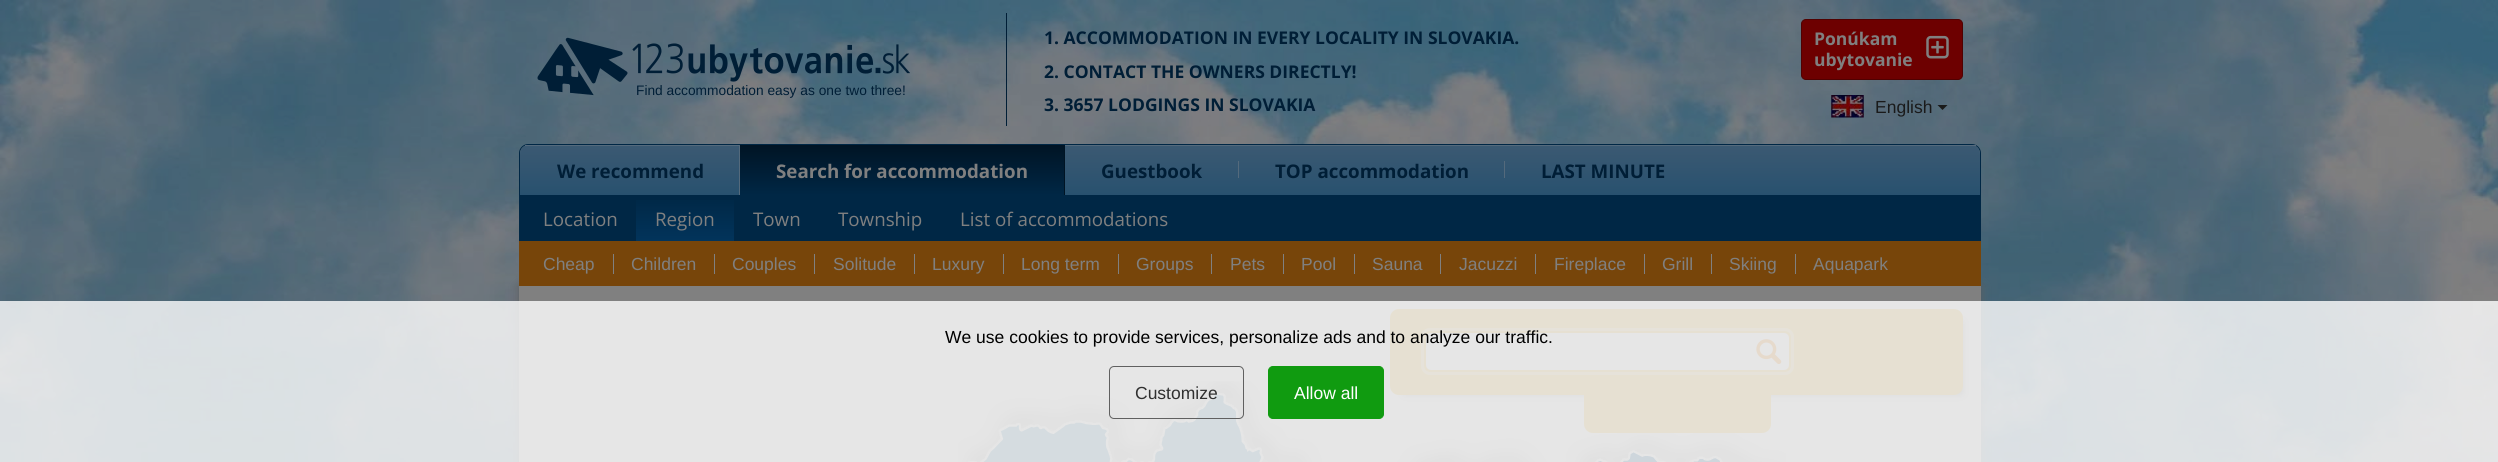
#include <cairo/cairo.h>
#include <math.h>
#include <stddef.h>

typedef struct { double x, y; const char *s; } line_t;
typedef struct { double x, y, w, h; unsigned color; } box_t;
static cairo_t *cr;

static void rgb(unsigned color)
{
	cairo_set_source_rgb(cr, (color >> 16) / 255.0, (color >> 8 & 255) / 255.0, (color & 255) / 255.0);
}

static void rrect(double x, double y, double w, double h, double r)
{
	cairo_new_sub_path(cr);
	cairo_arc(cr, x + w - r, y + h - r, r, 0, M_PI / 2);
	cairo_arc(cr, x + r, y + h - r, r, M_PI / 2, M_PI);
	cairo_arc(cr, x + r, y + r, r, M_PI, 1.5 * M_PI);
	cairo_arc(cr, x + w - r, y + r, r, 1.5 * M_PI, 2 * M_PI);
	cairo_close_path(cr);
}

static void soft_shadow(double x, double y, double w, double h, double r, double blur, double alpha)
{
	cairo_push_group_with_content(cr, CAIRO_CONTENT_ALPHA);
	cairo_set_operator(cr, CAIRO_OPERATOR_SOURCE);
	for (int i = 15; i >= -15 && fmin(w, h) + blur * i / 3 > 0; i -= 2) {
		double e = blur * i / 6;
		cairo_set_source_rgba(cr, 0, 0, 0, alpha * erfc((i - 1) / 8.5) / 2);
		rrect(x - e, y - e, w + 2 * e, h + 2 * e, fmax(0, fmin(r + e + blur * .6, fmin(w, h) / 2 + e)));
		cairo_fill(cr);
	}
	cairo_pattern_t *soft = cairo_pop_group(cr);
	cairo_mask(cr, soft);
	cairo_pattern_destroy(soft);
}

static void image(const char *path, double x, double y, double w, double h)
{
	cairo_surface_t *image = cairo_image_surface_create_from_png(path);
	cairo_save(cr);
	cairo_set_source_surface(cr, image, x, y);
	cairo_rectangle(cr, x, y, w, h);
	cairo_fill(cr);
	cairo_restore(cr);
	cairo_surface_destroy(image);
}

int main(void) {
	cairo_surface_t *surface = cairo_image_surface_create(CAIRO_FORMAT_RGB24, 2498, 462);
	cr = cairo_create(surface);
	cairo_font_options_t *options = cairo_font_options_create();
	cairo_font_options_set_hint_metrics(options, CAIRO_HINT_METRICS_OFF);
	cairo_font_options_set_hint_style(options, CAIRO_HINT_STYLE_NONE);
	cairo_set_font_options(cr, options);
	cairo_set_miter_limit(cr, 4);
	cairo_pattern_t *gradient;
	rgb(0xffffff);
	cairo_paint(cr);
	image("img/1.png", 0, 0, 2498, 462);
	rgb(0x6d0000);
	rrect(1801.5, 19.5, 161, 60, 4.5);
	cairo_fill_preserve(cr);
	rgb(0x500101);
	cairo_set_line_width(cr, 1);
	cairo_stroke(cr);
	image("img/2.png", 1926, 35, 23, 24);
	image("img/3.png", 1831, 95, 33, 23);
	rgb(0x1a1a1a);
	cairo_new_path(cr);
	cairo_move_to(cr, 1937.5, 105);
	cairo_line_to(cr, 1947.5, 105);
	cairo_line_to(cr, 1942.5, 110);
	cairo_close_path(cr);
	cairo_fill(cr);
	cairo_new_path(cr);
	cairo_move_to(cr, 528, 144.5);
	cairo_line_to(cr, 1972, 144.5);
	cairo_curve_to(cr, 1976.5, 144.5, 1980.5, 148.5, 1980.5, 153);
	cairo_line_to(cr, 1980.5, 240.5);
	cairo_line_to(cr, 519.5, 240.5);
	cairo_line_to(cr, 519.5, 153);
	cairo_curve_to(cr, 519.5, 148.5, 523.5, 144.5, 528, 144.5);
	cairo_close_path(cr);
	rgb(0x002745);
	cairo_stroke(cr);
	cairo_save(cr);
	cairo_new_path(cr);
	cairo_move_to(cr, 529, 145);
	cairo_line_to(cr, 1971, 145);
	cairo_curve_to(cr, 1976, 145, 1980, 149, 1980, 154);
	cairo_line_to(cr, 1980, 240);
	cairo_line_to(cr, 520, 240);
	cairo_line_to(cr, 520, 154);
	cairo_curve_to(cr, 520, 149, 524, 145, 529, 145);
	cairo_close_path(cr);
	cairo_clip(cr);
	gradient = cairo_pattern_create_linear(1250, 146, 1250, 240);
	cairo_pattern_add_color_stop_rgba(gradient, 0, 0.231, 0.349, 0.447, 1);
	cairo_pattern_add_color_stop_rgba(gradient, 1, 0.09, 0.29, 0.424, 1);
	cairo_set_source(cr, gradient);
	cairo_pattern_destroy(gradient);
	cairo_rectangle(cr, 520, 146, 1460, 49);
	cairo_fill(cr);
	cairo_restore(cr);
	rgb(0x546a7c);
	cairo_rectangle(cr, 525, 145, 1451, 1);
	cairo_fill(cr);
	gradient = cairo_pattern_create_linear(901, 145, 901, 195);
	cairo_pattern_add_color_stop_rgba(gradient, 0, 0, 0.078, 0.141, 1);
	cairo_pattern_add_color_stop_rgba(gradient, 1, 0, 0.153, 0.271, 1);
	cairo_set_source(cr, gradient);
	cairo_pattern_destroy(gradient);
	cairo_rectangle(cr, 740, 145, 324, 50);
	cairo_fill(cr);
	{
		static const box_t items[] = {
			{739, 145, 1, 50, 0x546a7c},
			{1064, 145, 1, 50, 0x001424},
			{520, 195, 1460, 45, 0x002745},
		};
		for (size_t i = 0; i < sizeof items / sizeof *items; i++) {
			rgb(items[i].color);
			cairo_rectangle(cr, items[i].x, items[i].y, items[i].w, items[i].h);
			cairo_fill(cr);
		}
	}
	gradient = cairo_pattern_create_linear(685, 195, 685, 241);
	cairo_pattern_add_color_stop_rgba(gradient, 0, 0, 0.153, 0.271, 1);
	cairo_pattern_add_color_stop_rgba(gradient, 1, 0.008, 0.204, 0.357, 1);
	cairo_set_source(cr, gradient);
	cairo_pattern_destroy(gradient);
	cairo_rectangle(cr, 636, 200, 98, 41);
	cairo_fill(cr);
	rgb(0x546a7c);
	cairo_rectangle(cr, 1238, 161, 1, 17);
	cairo_fill(cr);
	cairo_rectangle(cr, 1504, 161, 1, 17);
	cairo_fill(cr);
	rgb(0x5c5c5c);
	soft_shadow(519, 286, 1462, 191, 0, 5, 1);
	{
		static const box_t items[] = {
			{519, 241, 1462, 45, 0x77450a},
			{613, 254, 1, 20, 0x808080},
			{714, 254, 1, 20, 0x808080},
			{814, 254, 1, 20, 0x808080},
			{914, 254, 1, 20, 0x808080},
			{1003, 254, 1, 20, 0x808080},
			{1118, 254, 1, 20, 0x808080},
			{1211, 254, 1, 20, 0x808080},
			{1283, 254, 1, 20, 0x808080},
			{1354, 254, 1, 20, 0x808080},
			{1440, 254, 1, 20, 0x808080},
			{1535, 254, 1, 20, 0x808080},
			{1644, 254, 1, 20, 0x808080},
			{1711, 254, 1, 20, 0x808080},
			{1795, 254, 1, 20, 0x808080},
		};
		for (size_t i = 0; i < sizeof items / sizeof *items; i++) {
			rgb(items[i].color);
			cairo_rectangle(cr, items[i].x, items[i].y, items[i].w, items[i].h);
			cairo_fill(cr);
		}
	}
	image("img/4.png", 537, 37, 91, 59);
	image("img/5.png", 632, 43, 278, 39);
	rgb(0x001e36);
	cairo_rectangle(cr, 1006, 13, 1, 113);
	cairo_fill(cr);
	rgb(0x808080);
	cairo_rectangle(cr, 519, 286, 1462, 176);
	cairo_fill(cr);
	image("img/7.png", 958, 381, 828, 81);
	rgb(0x000000);
	soft_shadow(1403, 321, 560, 74, 2.5, 3, 0.3);
	rgb(0x80661e);
	rrect(1390, 309, 573, 86, 9);
	cairo_fill(cr);
	rrect(1422.5, 329.5, 370, 44, 7.5);
	rgb(0x807045);
	cairo_set_line_width(cr, 3);
	cairo_stroke(cr);
	rgb(0x808080);
	rrect(1426, 333, 363, 37, 5);
	cairo_fill(cr);
	image("img/6.png", 1756, 339, 26, 25);
	rgb(0x80661e);
	cairo_new_path(cr);
	cairo_move_to(cr, 1584, 395);
	cairo_line_to(cr, 1771, 395);
	cairo_line_to(cr, 1771, 424);
	cairo_curve_to(cr, 1771, 429, 1767, 433, 1762, 433);
	cairo_line_to(cr, 1593, 433);
	cairo_curve_to(cr, 1588, 433, 1584, 429, 1584, 424);
	cairo_close_path(cr);
	cairo_fill(cr);
	cairo_set_source_rgba(cr, 1, 1, 1, 0.8);
	cairo_rectangle(cr, 0, 301, 2498, 161);
	cairo_fill(cr);
	rrect(1109.5, 366.5, 134, 52, 4.5);
	rgb(0x606060);
	cairo_set_line_width(cr, 1);
	cairo_stroke(cr);
	rgb(0x109b10);
	rrect(1268.5, 366.5, 115, 52, 4.5);
	cairo_fill_preserve(cr);
	cairo_stroke(cr);
	cairo_select_font_face(cr, "Open Sans", CAIRO_FONT_SLANT_NORMAL, CAIRO_FONT_WEIGHT_BOLD);
	cairo_set_font_size(cr, 17.5);
	rgb(0x808080);
	cairo_move_to(cr, 1814, 45);
	cairo_show_text(cr, "Ponúkam");
	cairo_move_to(cr, 1814, 66);
	cairo_show_text(cr, "ubytovanie");
	cairo_select_font_face(cr, "Liberation Sans", CAIRO_FONT_SLANT_NORMAL, CAIRO_FONT_WEIGHT_NORMAL);
	rgb(0x1a1a1a);
	cairo_move_to(cr, 1875, 113);
	cairo_show_text(cr, "English");
	cairo_select_font_face(cr, "Open Sans", CAIRO_FONT_SLANT_NORMAL, CAIRO_FONT_WEIGHT_BOLD);
	cairo_set_font_size(cr, 18.75);
	rgb(0x808080);
	cairo_move_to(cr, 776, 178);
	cairo_show_text(cr, "Search for accommodation");
	cairo_select_font_face(cr, "Open Sans", CAIRO_FONT_SLANT_NORMAL, CAIRO_FONT_WEIGHT_NORMAL);
	{
		static const line_t items[] = {
			{543, 226, "Location"},
			{655, 226, "Region"},
			{753, 226, "Town"},
			{838, 226, "Township"},
			{960, 226, "List of accommodations"},
		};
		for (size_t i = 0; i < sizeof items / sizeof *items; i++) {
			cairo_move_to(cr, items[i].x, items[i].y);
			cairo_show_text(cr, items[i].s);
		}
	}
	cairo_select_font_face(cr, "Open Sans", CAIRO_FONT_SLANT_NORMAL, CAIRO_FONT_WEIGHT_BOLD);
	rgb(0x001e36);
	{
		static const line_t items[] = {
			{557, 178, "We recommend"},
			{1101, 178, "Guestbook"},
			{1275, 178, "TOP accommodation"},
			{1541, 178, "LAST MINUTE"},
		};
		for (size_t i = 0; i < sizeof items / sizeof *items; i++) {
			cairo_move_to(cr, items[i].x, items[i].y);
			cairo_show_text(cr, items[i].s);
		}
	}
	cairo_select_font_face(cr, "Liberation Sans", CAIRO_FONT_SLANT_NORMAL, CAIRO_FONT_WEIGHT_NORMAL);
	cairo_set_font_size(cr, 17.5);
	rgb(0x808080);
	{
		static const line_t items[] = {
			{543, 270, "Cheap"},
			{631, 270, "Children"},
			{732, 270, "Couples"},
			{833, 270, "Solitude"},
			{932, 270, "Luxury"},
			{1021, 270, "Long term"},
			{1136, 270, "Groups"},
			{1230, 270, "Pets"},
			{1301, 270, "Pool"},
			{1372, 270, "Sauna"},
			{1459, 270, "Jacuzzi"},
			{1554, 270, "Fireplace"},
			{1662, 270, "Grill"},
			{1729, 270, "Skiing"},
			{1813, 270, "Aquapark"},
		};
		for (size_t i = 0; i < sizeof items / sizeof *items; i++) {
			cairo_move_to(cr, items[i].x, items[i].y);
			cairo_show_text(cr, items[i].s);
		}
	}
	cairo_set_font_size(cr, 13.75);
	rgb(0x001e36);
	cairo_move_to(cr, 636, 95);
	cairo_show_text(cr, "Find accommodation easy as one two three!");
	cairo_select_font_face(cr, "Open Sans", CAIRO_FONT_SLANT_NORMAL, CAIRO_FONT_WEIGHT_BOLD);
	cairo_set_font_size(cr, 17.5);
	{
		static const line_t items[] = {
			{1044, 44, "1. ACCOMMODATION IN EVERY LOCALITY IN SLOVAKIA."},
			{1044, 78, "2. CONTACT THE OWNERS DIRECTLY!"},
			{1044, 111, "3. 3657 LODGINGS IN SLOVAKIA"},
		};
		for (size_t i = 0; i < sizeof items / sizeof *items; i++) {
			cairo_move_to(cr, items[i].x, items[i].y);
			cairo_show_text(cr, items[i].s);
		}
	}
	cairo_select_font_face(cr, "Liberation Sans", CAIRO_FONT_SLANT_NORMAL, CAIRO_FONT_WEIGHT_NORMAL);
	rgb(0x000000);
	cairo_move_to(cr, 945, 343);
	cairo_show_text(cr, "We use cookies to provide services, personalize ads and to analyze our traffic.");
	rgb(0x303030);
	cairo_move_to(cr, 1135, 399);
	cairo_show_text(cr, "Customize");
	rgb(0xffffff);
	cairo_move_to(cr, 1294, 399);
	cairo_show_text(cr, "Allow all");
	cairo_surface_write_to_png(surface, "page.png");
	cairo_font_options_destroy(options);
	cairo_destroy(cr);
	cairo_surface_destroy(surface);
	return 0;
}
